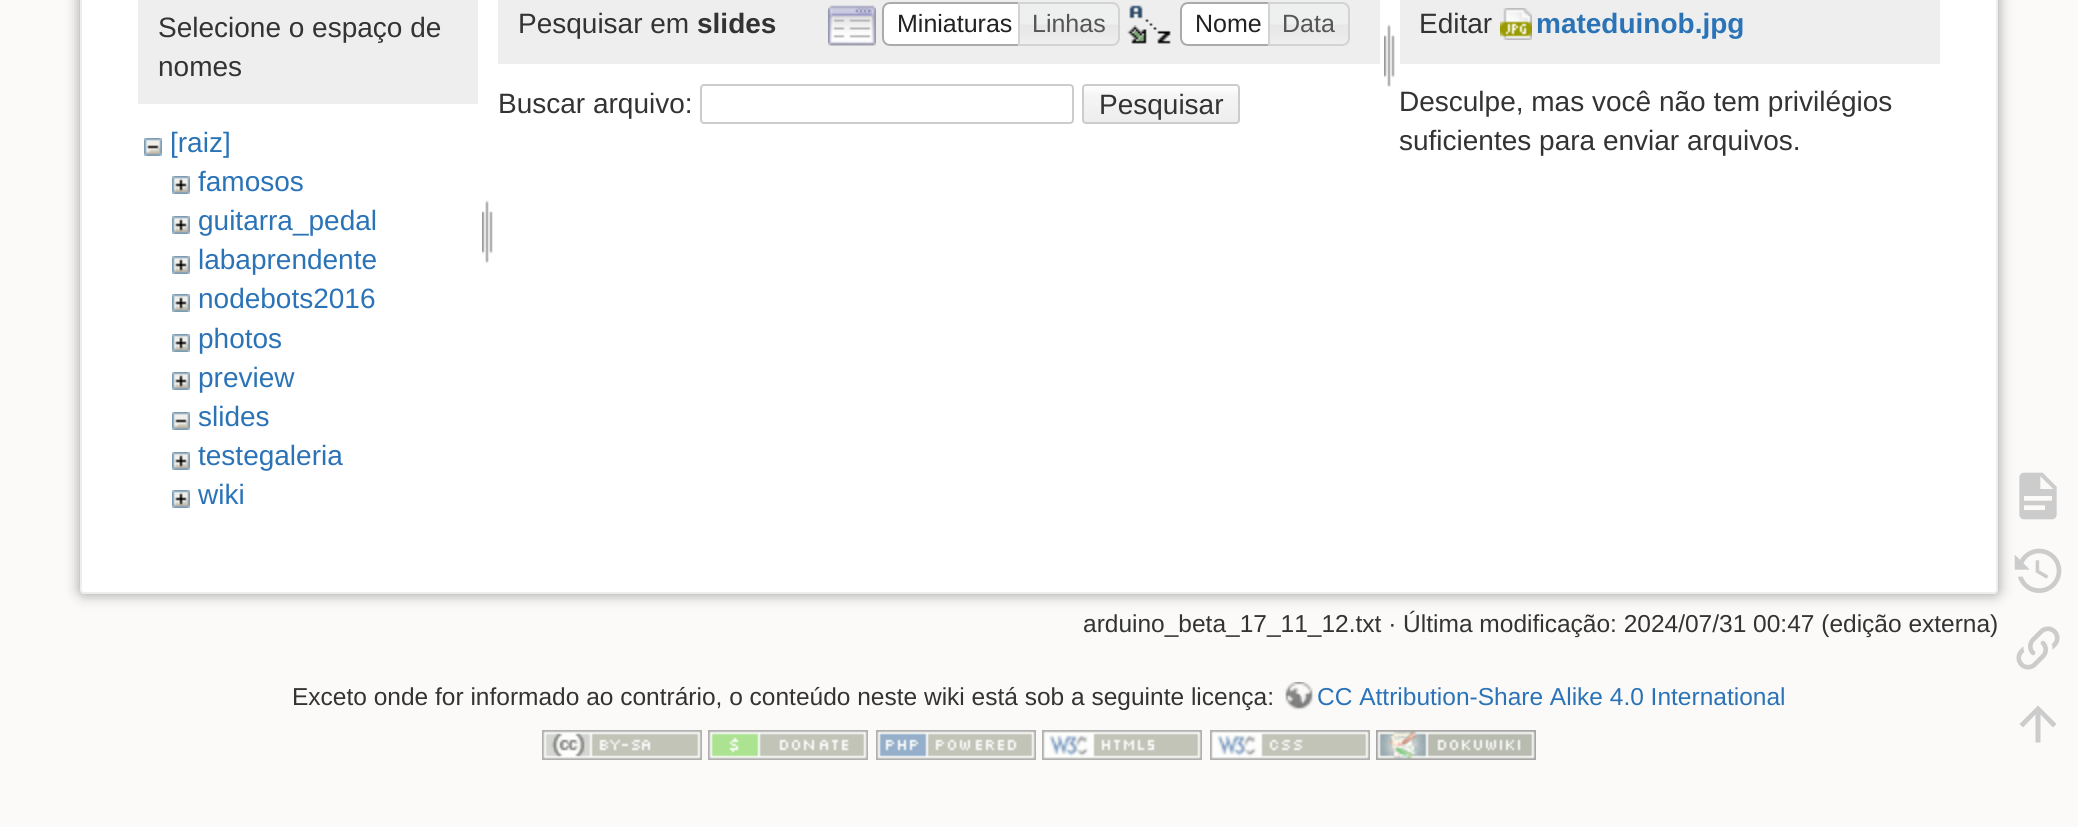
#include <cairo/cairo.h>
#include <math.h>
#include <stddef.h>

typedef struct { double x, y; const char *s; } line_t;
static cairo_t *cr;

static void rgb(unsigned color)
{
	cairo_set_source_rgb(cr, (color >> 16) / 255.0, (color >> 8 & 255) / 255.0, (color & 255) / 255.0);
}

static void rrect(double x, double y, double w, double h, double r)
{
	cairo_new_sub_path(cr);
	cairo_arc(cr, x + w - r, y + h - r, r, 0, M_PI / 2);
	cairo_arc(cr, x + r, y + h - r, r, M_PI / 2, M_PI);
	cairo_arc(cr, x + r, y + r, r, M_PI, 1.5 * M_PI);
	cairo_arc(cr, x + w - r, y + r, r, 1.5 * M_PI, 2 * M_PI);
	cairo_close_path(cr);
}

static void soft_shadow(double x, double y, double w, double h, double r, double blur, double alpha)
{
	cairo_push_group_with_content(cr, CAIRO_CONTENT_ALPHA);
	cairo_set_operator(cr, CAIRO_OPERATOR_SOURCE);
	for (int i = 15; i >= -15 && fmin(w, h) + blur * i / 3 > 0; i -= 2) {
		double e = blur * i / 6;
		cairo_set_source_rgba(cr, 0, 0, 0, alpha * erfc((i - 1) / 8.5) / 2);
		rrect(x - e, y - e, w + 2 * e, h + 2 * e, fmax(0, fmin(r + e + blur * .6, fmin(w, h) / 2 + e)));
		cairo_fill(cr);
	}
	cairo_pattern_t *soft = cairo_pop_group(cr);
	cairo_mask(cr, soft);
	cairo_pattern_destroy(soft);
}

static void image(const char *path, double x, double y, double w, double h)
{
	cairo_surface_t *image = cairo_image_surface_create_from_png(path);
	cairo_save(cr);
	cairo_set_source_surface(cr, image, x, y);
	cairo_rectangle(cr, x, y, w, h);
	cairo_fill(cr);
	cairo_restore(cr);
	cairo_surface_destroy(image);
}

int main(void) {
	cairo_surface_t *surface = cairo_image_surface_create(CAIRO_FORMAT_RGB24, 2078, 827);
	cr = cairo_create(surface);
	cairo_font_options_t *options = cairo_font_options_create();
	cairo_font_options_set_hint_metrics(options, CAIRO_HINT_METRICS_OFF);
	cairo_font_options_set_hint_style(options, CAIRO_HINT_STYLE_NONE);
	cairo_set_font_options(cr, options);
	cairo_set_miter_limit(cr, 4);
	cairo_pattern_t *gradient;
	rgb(0xfbfaf9);
	cairo_paint(cr);
	rgb(0x999999);
	soft_shadow(80, -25, 1918, 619, 4, 7, 1);
	rgb(0xffffff);
	rrect(81, -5, 1916, 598, 3);
	cairo_fill_preserve(cr);
	rgb(0xeeeeee);
	cairo_stroke(cr);
	cairo_rectangle(cr, 138, 0, 340, 104);
	cairo_fill(cr);
	image("img/1.png", 144, 138, 18, 18);
	image("img/2.png", 172, 176, 18, 18);
	image("img/2.png", 172, 216, 18, 18);
	image("img/2.png", 172, 256, 18, 18);
	image("img/2.png", 172, 294, 18, 18);
	image("img/2.png", 172, 334, 18, 18);
	image("img/2.png", 172, 372, 18, 18);
	image("img/1.png", 172, 412, 18, 18);
	image("img/2.png", 172, 452, 18, 18);
	image("img/2.png", 172, 490, 18, 18);
	image("img/3.png", 482, 200, 11, 63);
	cairo_rectangle(cr, 498, 0, 882, 64);
	cairo_fill(cr);
	image("img/4.png", 828, 5, 48, 41);
	rgb(0xffffff);
	cairo_new_path(cr);
	cairo_move_to(cr, 890, 2);
	cairo_line_to(cr, 1028, 2);
	cairo_line_to(cr, 1028, 46);
	cairo_line_to(cr, 890, 46);
	cairo_curve_to(cr, 885.5, 46, 882, 42.5, 882, 38);
	cairo_line_to(cr, 882, 10);
	cairo_curve_to(cr, 882, 5.5, 885.5, 2, 890, 2);
	cairo_close_path(cr);
	cairo_fill(cr);
	image("img/5.png", 882, 2, 6, 44);
	cairo_new_path(cr);
	cairo_move_to(cr, 890, 3);
	cairo_line_to(cr, 1027, 3);
	cairo_line_to(cr, 1027, 45);
	cairo_line_to(cr, 890, 45);
	cairo_curve_to(cr, 886, 45, 883, 42, 883, 38);
	cairo_line_to(cr, 883, 10);
	cairo_curve_to(cr, 883, 6, 886, 3, 890, 3);
	cairo_close_path(cr);
	rgb(0xaaaaaa);
	cairo_stroke(cr);
	image("img/6.png", 1020, 2, 100, 44);
	cairo_new_path(cr);
	cairo_move_to(cr, 1019, 3);
	cairo_line_to(cr, 1112, 3);
	cairo_curve_to(cr, 1116, 3, 1119, 6, 1119, 10);
	cairo_line_to(cr, 1119, 38);
	cairo_curve_to(cr, 1119, 42, 1116, 45, 1112, 45);
	cairo_line_to(cr, 1019, 45);
	cairo_close_path(cr);
	rgb(0xd3d3d3);
	cairo_stroke(cr);
	image("img/7.png", 1127, 5, 44, 39);
	rgb(0xffffff);
	cairo_new_path(cr);
	cairo_move_to(cr, 1188, 2);
	cairo_line_to(cr, 1278, 2);
	cairo_line_to(cr, 1278, 46);
	cairo_line_to(cr, 1188, 46);
	cairo_curve_to(cr, 1183.5, 46, 1180, 42.5, 1180, 38);
	cairo_line_to(cr, 1180, 10);
	cairo_curve_to(cr, 1180, 5.5, 1183.5, 2, 1188, 2);
	cairo_close_path(cr);
	cairo_fill(cr);
	image("img/5.png", 1180, 2, 6, 44);
	cairo_new_path(cr);
	cairo_move_to(cr, 1188, 3);
	cairo_line_to(cr, 1277, 3);
	cairo_line_to(cr, 1277, 45);
	cairo_line_to(cr, 1188, 45);
	cairo_curve_to(cr, 1184, 45, 1181, 42, 1181, 38);
	cairo_line_to(cr, 1181, 10);
	cairo_curve_to(cr, 1181, 6, 1184, 3, 1188, 3);
	cairo_close_path(cr);
	rgb(0xaaaaaa);
	cairo_stroke(cr);
	image("img/8.png", 1270, 2, 80, 44);
	cairo_new_path(cr);
	cairo_move_to(cr, 1269, 3);
	cairo_line_to(cr, 1342, 3);
	cairo_curve_to(cr, 1346, 3, 1349, 6, 1349, 10);
	cairo_line_to(cr, 1349, 38);
	cairo_curve_to(cr, 1349, 42, 1346, 45, 1342, 45);
	cairo_line_to(cr, 1269, 45);
	cairo_close_path(cr);
	rgb(0xd3d3d3);
	cairo_stroke(cr);
	image("img/3.png", 1384, 24, 11, 63);
	rrect(701, 85, 372, 38, 3);
	rgb(0xcccccc);
	cairo_stroke(cr);
	cairo_save(cr);
	rrect(1082, 84, 158, 40, 4);
	cairo_clip(cr);
	gradient = cairo_pattern_create_linear(1161, 86, 1161, 122);
	cairo_pattern_add_color_stop_rgba(gradient, 0, 1, 1, 1, 1);
	cairo_pattern_add_color_stop_rgba(gradient, 0.3, 0.957, 0.957, 0.957, 1);
	cairo_pattern_add_color_stop_rgba(gradient, 0.99, 0.933, 0.933, 0.933, 1);
	cairo_pattern_add_color_stop_rgba(gradient, 0.99, 0.8, 0.8, 0.8, 1);
	cairo_set_source(cr, gradient);
	cairo_pattern_destroy(gradient);
	cairo_rectangle(cr, 1082, 86, 158, 36);
	cairo_fill(cr);
	cairo_restore(cr);
	rrect(1083, 85, 156, 38, 3);
	cairo_stroke(cr);
	rgb(0xeeeeee);
	cairo_rectangle(cr, 1400, 0, 540, 64);
	cairo_fill(cr);
	image("img/9.png", 1500, 8, 32, 32);
	image("img/10.png", 2019, 472, 38, 48);
	image("img/11.png", 2014, 548, 48, 45);
	image("img/12.png", 2016, 626, 44, 44);
	rgb(0xcccccc);
	cairo_new_path(cr);
	cairo_move_to(cr, 2040.5, 742.5);
	cairo_line_to(cr, 2035.5, 742.5);
	cairo_line_to(cr, 2035.5, 714.5);
	cairo_line_to(cr, 2023, 727.5);
	cairo_line_to(cr, 2019.5, 724);
	cairo_line_to(cr, 2038, 705.5);
	cairo_line_to(cr, 2056.5, 724);
	cairo_line_to(cr, 2053, 727.5);
	cairo_line_to(cr, 2040.5, 714.5);
	cairo_close_path(cr);
	cairo_fill(cr);
	image("img/13.png", 1285, 682, 29, 28);
	image("img/14.png", 542, 730, 160, 30);
	image("img/15.png", 708, 730, 160, 30);
	image("img/16.png", 876, 730, 160, 30);
	image("img/17.png", 1042, 730, 160, 30);
	image("img/18.png", 1210, 730, 160, 30);
	image("img/19.png", 1376, 730, 160, 30);
	cairo_select_font_face(cr, "Liberation Sans", CAIRO_FONT_SLANT_NORMAL, CAIRO_FONT_WEIGHT_NORMAL);
	cairo_set_font_size(cr, 28);
	rgb(0x333333);
	cairo_move_to(cr, 158, 37);
	cairo_show_text(cr, "Selecione o espaço de");
	cairo_move_to(cr, 158, 76);
	cairo_show_text(cr, "nomes");
	rgb(0x2b73b7);
	{
		static const line_t items[] = {
			{170, 152, "[raiz]"},
			{198, 191, "famosos"},
			{198, 230, "guitarra_pedal"},
			{198, 269, "labaprendente"},
			{198, 308, "nodebots2016"},
			{198, 348, "photos"},
			{198, 387, "preview"},
			{198, 426, "slides"},
			{198, 465, "testegaleria"},
			{198, 504, "wiki"},
		};
		for (size_t i = 0; i < sizeof items / sizeof *items; i++) {
			cairo_move_to(cr, items[i].x, items[i].y);
			cairo_show_text(cr, items[i].s);
		}
	}
	rgb(0x333333);
	cairo_move_to(cr, 518, 33);
	cairo_show_text(cr, "Pesquisar em");
	cairo_select_font_face(cr, "Liberation Sans", CAIRO_FONT_SLANT_NORMAL, CAIRO_FONT_WEIGHT_BOLD);
	cairo_move_to(cr, 697, 33);
	cairo_show_text(cr, "slides");
	cairo_select_font_face(cr, "Liberation Sans", CAIRO_FONT_SLANT_NORMAL, CAIRO_FONT_WEIGHT_NORMAL);
	cairo_set_font_size(cr, 25);
	rgb(0x212121);
	cairo_move_to(cr, 897, 32);
	cairo_show_text(cr, "Miniaturas");
	rgb(0x555555);
	cairo_move_to(cr, 1032, 32);
	cairo_show_text(cr, "Linhas");
	rgb(0x212121);
	cairo_move_to(cr, 1195, 32);
	cairo_show_text(cr, "Nome");
	rgb(0x555555);
	cairo_move_to(cr, 1282, 32);
	cairo_show_text(cr, "Data");
	cairo_set_font_size(cr, 28);
	rgb(0x333333);
	{
		static const line_t items[] = {
			{498, 113, "Buscar arquivo:"},
			{1099, 114, "Pesquisar"},
			{1419, 33, "Editar"},
		};
		for (size_t i = 0; i < sizeof items / sizeof *items; i++) {
			cairo_move_to(cr, items[i].x, items[i].y);
			cairo_show_text(cr, items[i].s);
		}
	}
	cairo_select_font_face(cr, "Liberation Sans", CAIRO_FONT_SLANT_NORMAL, CAIRO_FONT_WEIGHT_BOLD);
	rgb(0x2b73b7);
	cairo_move_to(cr, 1536, 33);
	cairo_show_text(cr, "mateduinob.jpg");
	cairo_select_font_face(cr, "Liberation Sans", CAIRO_FONT_SLANT_NORMAL, CAIRO_FONT_WEIGHT_NORMAL);
	rgb(0x333333);
	cairo_move_to(cr, 1399, 111);
	cairo_show_text(cr, "Desculpe, mas você não tem privilégios");
	cairo_move_to(cr, 1399, 150);
	cairo_show_text(cr, "suficientes para enviar arquivos.");
	cairo_set_font_size(cr, 24.5);
	cairo_move_to(cr, 1083, 632);
	cairo_show_text(cr, "arduino_beta_17_11_12.txt · Última modificação: 2024/07/31 00:47 (edição externa)");
	cairo_move_to(cr, 292, 705);
	cairo_show_text(cr, "Exceto onde for informado ao contrário, o conteúdo neste wiki está sob a seguinte licença:");
	rgb(0x2b73b7);
	cairo_move_to(cr, 1317, 705);
	cairo_show_text(cr, "CC Attribution-Share Alike 4.0 International");
	cairo_surface_write_to_png(surface, "page.png");
	cairo_font_options_destroy(options);
	cairo_destroy(cr);
	cairo_surface_destroy(surface);
	return 0;
}
